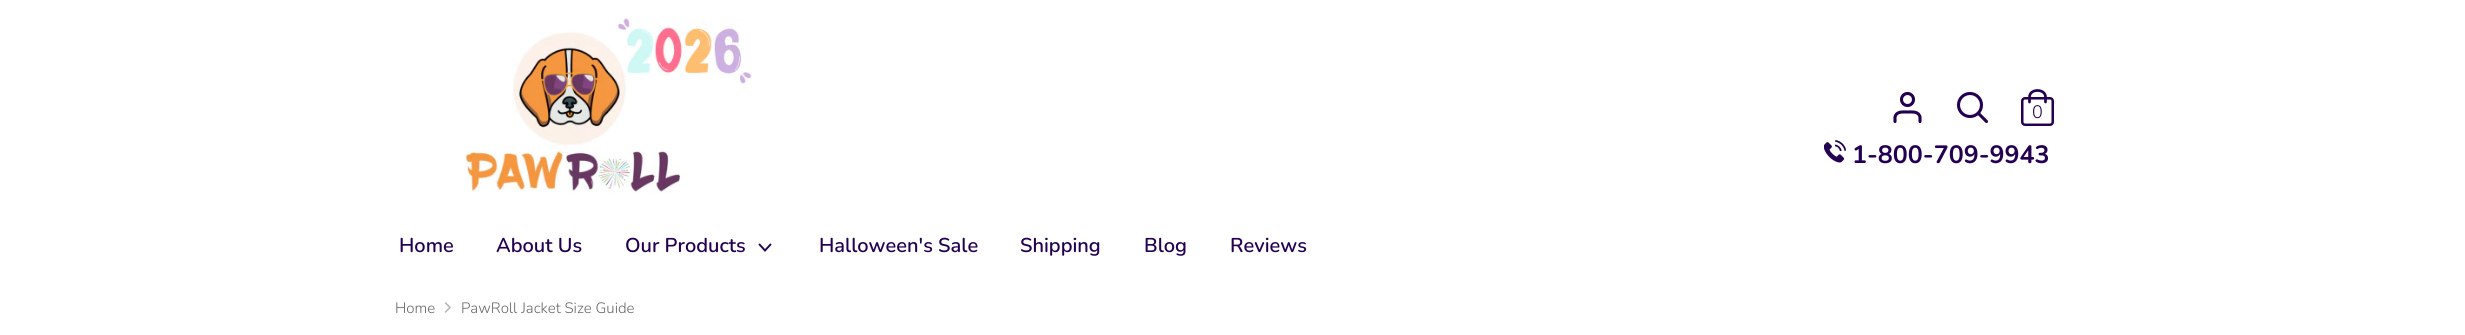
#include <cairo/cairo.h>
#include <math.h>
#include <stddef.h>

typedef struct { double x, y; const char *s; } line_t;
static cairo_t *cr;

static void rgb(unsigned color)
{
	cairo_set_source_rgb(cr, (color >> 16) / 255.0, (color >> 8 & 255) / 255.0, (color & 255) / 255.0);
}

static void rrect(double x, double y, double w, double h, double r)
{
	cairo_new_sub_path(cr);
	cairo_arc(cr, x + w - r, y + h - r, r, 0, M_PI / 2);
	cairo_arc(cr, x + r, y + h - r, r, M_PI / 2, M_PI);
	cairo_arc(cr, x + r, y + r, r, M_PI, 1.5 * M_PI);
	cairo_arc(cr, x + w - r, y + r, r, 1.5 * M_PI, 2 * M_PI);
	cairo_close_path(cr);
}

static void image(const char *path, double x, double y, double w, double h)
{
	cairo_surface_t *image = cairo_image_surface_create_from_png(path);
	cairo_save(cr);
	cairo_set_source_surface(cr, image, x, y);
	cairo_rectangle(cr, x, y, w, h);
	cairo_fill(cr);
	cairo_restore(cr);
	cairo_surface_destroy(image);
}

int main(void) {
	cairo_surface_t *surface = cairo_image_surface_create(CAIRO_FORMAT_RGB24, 2465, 335);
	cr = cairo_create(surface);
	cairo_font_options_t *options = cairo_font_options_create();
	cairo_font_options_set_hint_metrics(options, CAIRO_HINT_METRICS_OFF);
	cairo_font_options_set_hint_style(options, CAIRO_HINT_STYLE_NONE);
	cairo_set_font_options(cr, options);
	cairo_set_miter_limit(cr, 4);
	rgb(0xffffff);
	cairo_paint(cr);
	image("img/1.png", 465, 18, 287, 175);
	cairo_new_path(cr);
	cairo_move_to(cr, 1920, 121.5);
	cairo_line_to(cr, 1920, 117);
	cairo_curve_to(cr, 1918.5, 111, 1912, 112, 1907.5, 112);
	cairo_curve_to(cr, 1903, 112, 1896.5, 111, 1895, 117);
	cairo_line_to(cr, 1895, 121.5);
	rgb(0x230051);
	cairo_set_line_width(cr, 3.1);
	cairo_set_line_cap(cr, CAIRO_LINE_CAP_ROUND);
	cairo_stroke(cr);
	cairo_arc(cr, 1907.5, 99.5, 6, 0, 2 * M_PI);
	cairo_set_line_cap(cr, CAIRO_LINE_CAP_BUTT);
	cairo_stroke(cr);
	cairo_arc(cr, 1970, 105, 11.5, 0, 2 * M_PI);
	cairo_stroke(cr);
	cairo_new_path(cr);
	cairo_move_to(cr, 1986.5, 121.5);
	cairo_line_to(cr, 1978.5, 113.5);
	cairo_set_line_cap(cr, CAIRO_LINE_CAP_ROUND);
	cairo_stroke(cr);
	rrect(2022.25, 98.25, 30.5, 26.5, 2.75);
	cairo_set_line_width(cr, 2.5);
	cairo_set_line_cap(cr, CAIRO_LINE_CAP_BUTT);
	cairo_stroke(cr);
	cairo_new_path(cr);
	cairo_move_to(cr, 2029.5, 102);
	cairo_line_to(cr, 2029.5, 97);
	cairo_curve_to(cr, 2029.5, 93, 2033, 90.5, 2037.5, 90.5);
	cairo_curve_to(cr, 2042, 90.5, 2045.5, 93, 2045.5, 97);
	cairo_line_to(cr, 2045.5, 102);
	cairo_set_line_width(cr, 2.7);
	cairo_set_line_cap(cr, CAIRO_LINE_CAP_ROUND);
	cairo_stroke(cr);
	image("img/2.png", 1824, 140, 22, 23);
	cairo_new_path(cr);
	cairo_move_to(cr, 759.5, 244.5);
	cairo_line_to(cr, 765, 250.5);
	cairo_line_to(cr, 770.5, 244.5);
	cairo_set_line_width(cr, 1.9);
	cairo_stroke(cr);
	cairo_new_path(cr);
	cairo_move_to(cr, 445.5, 312);
	cairo_line_to(cr, 450, 307.5);
	cairo_line_to(cr, 445.5, 303);
	rgb(0xb3b3b4);
	cairo_set_line_width(cr, 1.5);
	cairo_stroke(cr);
	cairo_select_font_face(cr, "Nunito Light", CAIRO_FONT_SLANT_NORMAL, CAIRO_FONT_WEIGHT_NORMAL);
	cairo_set_font_size(cr, 18);
	rgb(0x230051);
	cairo_move_to(cr, 2032, 118);
	cairo_show_text(cr, "0");
	cairo_select_font_face(cr, "Nunito", CAIRO_FONT_SLANT_NORMAL, CAIRO_FONT_WEIGHT_BOLD);
	cairo_set_font_size(cr, 25);
	cairo_move_to(cr, 1852, 163);
	cairo_show_text(cr, "1-800-709-9943");
	cairo_select_font_face(cr, "Nunito SemiBold", CAIRO_FONT_SLANT_NORMAL, CAIRO_FONT_WEIGHT_NORMAL);
	cairo_set_font_size(cr, 20);
	{
		static const line_t items[] = {
			{399, 252, "Home"},
			{496, 252, "About Us"},
			{625, 252, "Our Products"},
			{819, 252, "Halloween's Sale"},
			{1020, 252, "Shipping"},
			{1144, 252, "Blog"},
			{1230, 252, "Reviews"},
		};
		for (size_t i = 0; i < sizeof items / sizeof *items; i++) {
			cairo_move_to(cr, items[i].x, items[i].y);
			cairo_show_text(cr, items[i].s);
		}
	}
	cairo_select_font_face(cr, "Nunito Light", CAIRO_FONT_SLANT_NORMAL, CAIRO_FONT_WEIGHT_NORMAL);
	cairo_set_font_size(cr, 15);
	rgb(0x666768);
	cairo_move_to(cr, 395, 313);
	cairo_show_text(cr, "Home");
	cairo_move_to(cr, 461, 313);
	cairo_show_text(cr, "PawRoll Jacket Size Guide");
	cairo_surface_write_to_png(surface, "page.png");
	cairo_font_options_destroy(options);
	cairo_destroy(cr);
	cairo_surface_destroy(surface);
	return 0;
}
